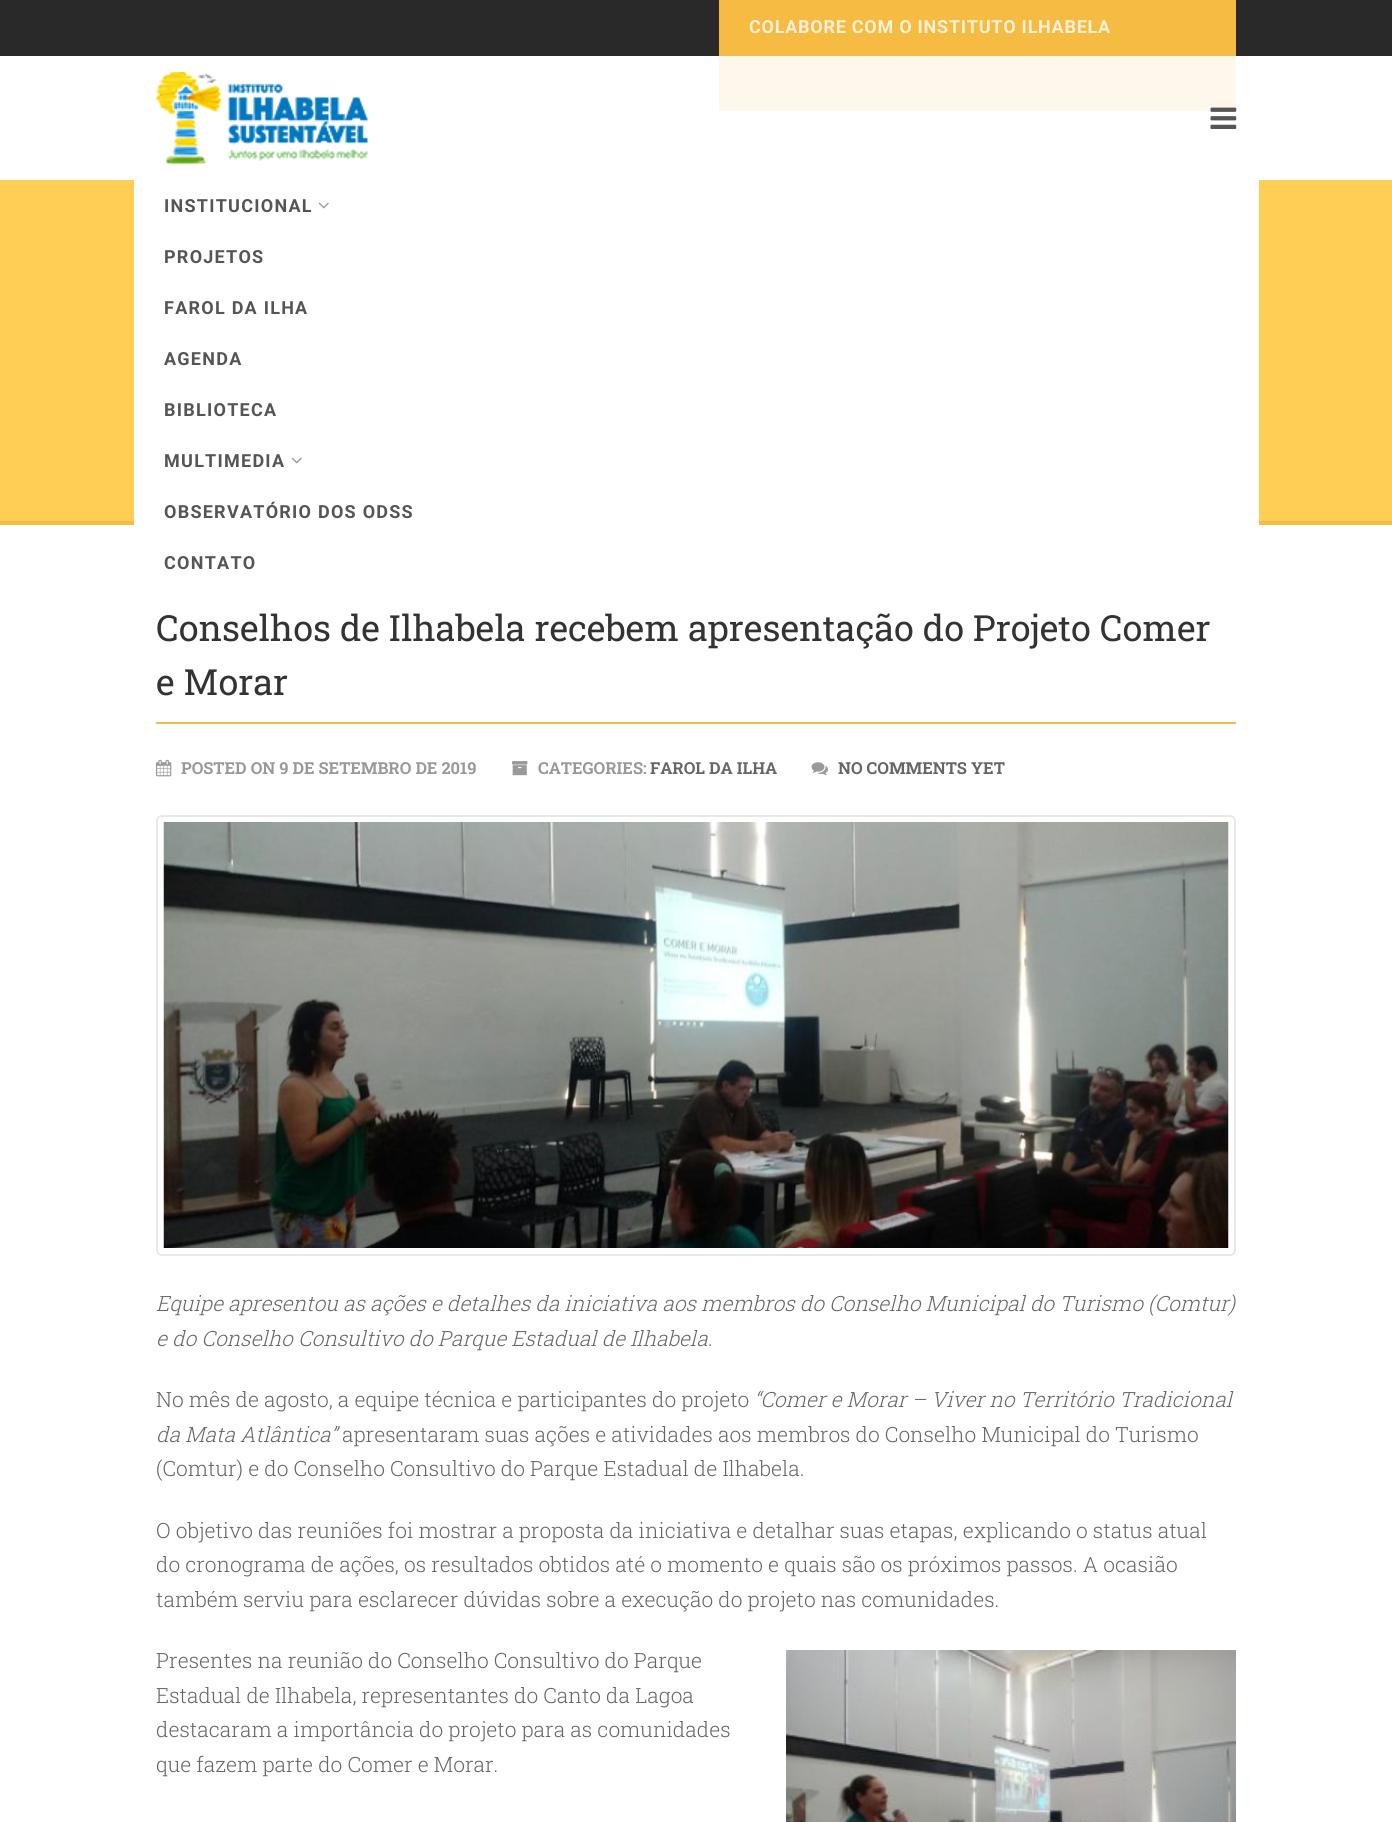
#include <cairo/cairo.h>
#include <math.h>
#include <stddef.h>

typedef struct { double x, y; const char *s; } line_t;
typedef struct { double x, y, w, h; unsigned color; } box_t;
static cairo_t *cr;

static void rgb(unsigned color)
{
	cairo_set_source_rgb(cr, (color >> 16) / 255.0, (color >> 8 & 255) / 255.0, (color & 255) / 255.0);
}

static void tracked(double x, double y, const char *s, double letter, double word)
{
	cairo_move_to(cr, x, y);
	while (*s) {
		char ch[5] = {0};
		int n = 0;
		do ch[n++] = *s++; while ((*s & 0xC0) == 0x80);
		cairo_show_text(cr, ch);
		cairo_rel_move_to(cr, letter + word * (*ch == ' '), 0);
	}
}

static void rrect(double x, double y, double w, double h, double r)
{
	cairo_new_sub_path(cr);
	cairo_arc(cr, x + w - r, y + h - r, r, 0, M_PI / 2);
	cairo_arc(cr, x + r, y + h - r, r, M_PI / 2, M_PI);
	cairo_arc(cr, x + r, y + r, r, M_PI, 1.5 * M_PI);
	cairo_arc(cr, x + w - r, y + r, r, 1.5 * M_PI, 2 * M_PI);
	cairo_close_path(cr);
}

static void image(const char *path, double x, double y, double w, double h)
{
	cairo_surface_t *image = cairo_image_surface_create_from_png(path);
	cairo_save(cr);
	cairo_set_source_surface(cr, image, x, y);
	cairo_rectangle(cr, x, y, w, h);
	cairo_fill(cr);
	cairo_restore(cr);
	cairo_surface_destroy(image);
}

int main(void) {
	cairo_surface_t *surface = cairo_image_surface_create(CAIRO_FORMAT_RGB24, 1392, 1822);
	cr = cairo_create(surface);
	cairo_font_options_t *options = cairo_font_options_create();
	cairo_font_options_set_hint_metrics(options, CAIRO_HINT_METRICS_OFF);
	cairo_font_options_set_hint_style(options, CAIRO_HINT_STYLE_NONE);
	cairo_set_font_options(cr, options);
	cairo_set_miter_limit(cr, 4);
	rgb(0xffffff);
	cairo_paint(cr);
	{
		static const box_t items[] = {
			{0, 0, 1392, 56, 0x292929},
			{719, 0, 517, 56, 0xf6bb42},
			{719, 56, 517, 55, 0xfef8ec},
		};
		for (size_t i = 0; i < sizeof items / sizeof *items; i++) {
			rgb(items[i].color);
			cairo_rectangle(cr, items[i].x, items[i].y, items[i].w, items[i].h);
			cairo_fill(cr);
		}
	}
	image("img/1.png", 156, 72, 212, 92);
	image("img/2.png", 1210, 107, 27, 22);
	{
		static const box_t items[] = {
			{0, 180, 1392, 341, 0xffce54},
			{0, 521, 1392, 4, 0xf6bb42},
			{134, 180, 1125, 345, 0xffffff},
		};
		for (size_t i = 0; i < sizeof items / sizeof *items; i++) {
			rgb(items[i].color);
			cairo_rectangle(cr, items[i].x, items[i].y, items[i].w, items[i].h);
			cairo_fill(cr);
		}
	}
	image("img/3.png", 318, 202, 11, 7);
	image("img/3.png", 291, 457, 11, 7);
	rgb(0xf6bb42);
	cairo_rectangle(cr, 156, 722, 1080, 2);
	cairo_fill(cr);
	image("img/4.png", 156, 759, 16, 18);
	image("img/5.png", 512, 761, 16, 15);
	image("img/6.png", 811, 762, 17, 14);
	rrect(157, 816, 1078, 439, 5);
	rgb(0xe8e8e8);
	cairo_stroke(cr);
	image("img/7.png", 163, 822, 1066, 426);
	image("img/8.png", 786, 1650, 450, 172);
	cairo_select_font_face(cr, "Roboto", CAIRO_FONT_SLANT_NORMAL, CAIRO_FONT_WEIGHT_BOLD);
	cairo_set_font_size(cr, 18);
	rgb(0xfdf1d9);
	tracked(749, 33, "COLABORE COM O INSTITUTO ILHABELA", 0.75, 0);
	rgb(0x555555);
	{
		static const line_t items[] = {
			{164, 212, "INSTITUCIONAL"},
			{164, 263, "PROJETOS"},
			{164, 314, "FAROL DA ILHA"},
			{164, 365, "AGENDA"},
			{164, 416, "BIBLIOTECA"},
			{164, 467, "MULTIMEDIA"},
			{164, 518, "OBSERVATÓRIO DOS ODSS"},
			{164, 569, "CONTATO"},
		};
		for (size_t i = 0; i < sizeof items / sizeof *items; i++) {
			tracked(items[i].x, items[i].y, items[i].s, 1.25, 0);
		}
	}
	cairo_select_font_face(cr, "Roboto Slab", CAIRO_FONT_SLANT_NORMAL, CAIRO_FONT_WEIGHT_NORMAL);
	cairo_set_font_size(cr, 36);
	rgb(0x333333);
	cairo_move_to(cr, 156, 641);
	cairo_show_text(cr, "Conselhos de Ilhabela recebem apresentação do Projeto Comer");
	cairo_move_to(cr, 156, 695);
	cairo_show_text(cr, "e Morar");
	cairo_select_font_face(cr, "Roboto Slab", CAIRO_FONT_SLANT_NORMAL, CAIRO_FONT_WEIGHT_BOLD);
	cairo_set_font_size(cr, 16.5);
	rgb(0x999999);
	cairo_move_to(cr, 181, 774);
	cairo_show_text(cr, "POSTED ON 9 DE SETEMBRO DE 2019");
	cairo_move_to(cr, 538, 774);
	cairo_show_text(cr, "CATEGORIES:");
	rgb(0x666666);
	cairo_move_to(cr, 650, 774);
	cairo_show_text(cr, "FAROL DA ILHA");
	cairo_move_to(cr, 838, 774);
	cairo_show_text(cr, "NO COMMENTS YET");
	cairo_select_font_face(cr, "Roboto Slab Light", CAIRO_FONT_SLANT_ITALIC, CAIRO_FONT_WEIGHT_NORMAL);
	cairo_set_font_size(cr, 21);
	cairo_move_to(cr, 156, 1311);
	cairo_show_text(cr, "Equipe apresentou as ações e detalhes da iniciativa aos membros do Conselho Municipal do Turismo (Comtur)");
	cairo_move_to(cr, 156, 1346);
	cairo_show_text(cr, "e do Conselho Consultivo do Parque Estadual de Ilhabela.");
	cairo_select_font_face(cr, "Roboto Slab Light", CAIRO_FONT_SLANT_NORMAL, CAIRO_FONT_WEIGHT_NORMAL);
	cairo_move_to(cr, 156, 1407);
	cairo_show_text(cr, "No mês de agosto, a equipe técnica e participantes do projeto");
	cairo_select_font_face(cr, "Roboto Slab Light", CAIRO_FONT_SLANT_ITALIC, CAIRO_FONT_WEIGHT_NORMAL);
	cairo_move_to(cr, 754, 1407);
	cairo_show_text(cr, "“Comer e Morar – Viver no Território Tradicional");
	cairo_move_to(cr, 156, 1442);
	cairo_show_text(cr, "da Mata Atlântica”");
	cairo_select_font_face(cr, "Roboto Slab Light", CAIRO_FONT_SLANT_NORMAL, CAIRO_FONT_WEIGHT_NORMAL);
	{
		static const line_t items[] = {
			{342, 1442, "apresentaram suas ações e atividades aos membros do Conselho Municipal do Turismo"},
			{156, 1476, "(Comtur) e do Conselho Consultivo do Parque Estadual de Ilhabela."},
			{156, 1538, "O objetivo das reuniões foi mostrar a proposta da iniciativa e detalhar suas etapas, explicando o status atual"},
			{156, 1572, "do cronograma de ações, os resultados obtidos até o momento e quais são os próximos passos. A ocasião"},
			{156, 1607, "também serviu para esclarecer dúvidas sobre a execução do projeto nas comunidades."},
			{156, 1668, "Presentes na reunião do Conselho Consultivo do Parque"},
			{156, 1703, "Estadual de Ilhabela, representantes do Canto da Lagoa"},
			{156, 1737, "destacaram a importância do projeto para as comunidades"},
			{156, 1772, "que fazem parte do Comer e Morar."},
		};
		for (size_t i = 0; i < sizeof items / sizeof *items; i++) {
			cairo_move_to(cr, items[i].x, items[i].y);
			cairo_show_text(cr, items[i].s);
		}
	}
	cairo_surface_write_to_png(surface, "page.png");
	cairo_font_options_destroy(options);
	cairo_destroy(cr);
	cairo_surface_destroy(surface);
	return 0;
}
